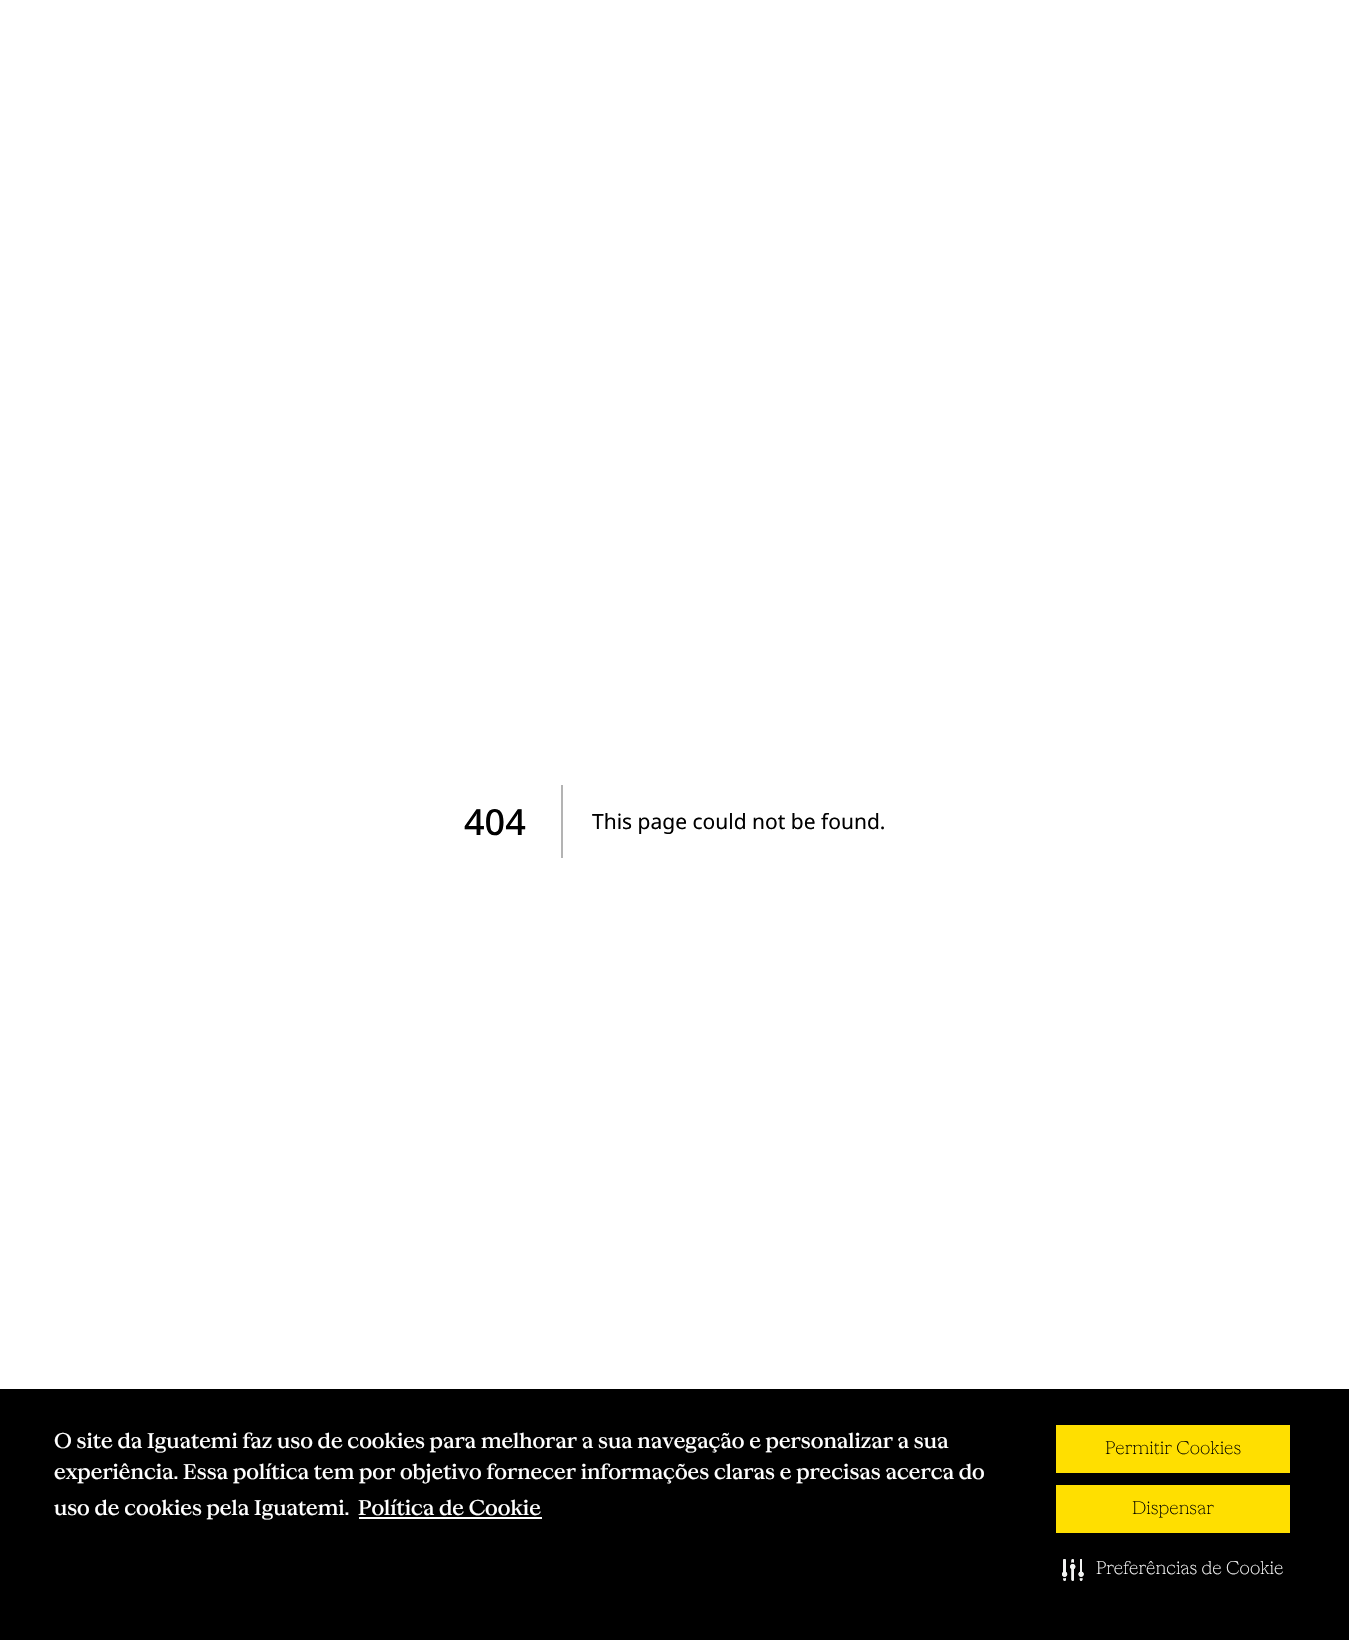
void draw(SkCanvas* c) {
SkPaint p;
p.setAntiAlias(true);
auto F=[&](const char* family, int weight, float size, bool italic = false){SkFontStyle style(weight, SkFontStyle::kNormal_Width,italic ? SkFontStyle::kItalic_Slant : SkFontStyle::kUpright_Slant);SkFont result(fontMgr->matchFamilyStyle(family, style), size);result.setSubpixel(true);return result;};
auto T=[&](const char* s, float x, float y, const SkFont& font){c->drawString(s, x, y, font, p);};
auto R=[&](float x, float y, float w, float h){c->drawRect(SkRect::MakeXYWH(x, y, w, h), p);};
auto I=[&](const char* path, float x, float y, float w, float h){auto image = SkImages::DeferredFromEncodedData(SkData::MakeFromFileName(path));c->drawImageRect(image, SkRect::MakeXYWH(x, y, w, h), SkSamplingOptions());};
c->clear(0xffffffff);
p.setColor(0xffb3b3b3);
R(561,785,2,73);
auto f1 = F("Noto Sans",500,36);
p.setColor(0xff000000);
T("404",464,835,f1);
auto f2 = F("Noto Sans",400,21);
T("This page could not be found.",592,829,f2);
R(0,1389,1349,251);
auto f3 = F("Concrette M",500,21);
p.setColor(0xffffffff);
T("O site da Iguatemi faz uso de cookies para melhorar a sua navegação e personalizar a sua",54,1448,f3);
T("experiência. Essa política tem por objetivo fornecer informações claras e precisas acerca do",54,1479,f3);
T("uso de cookies pela Iguatemi.",54,1515,f3);
T("Política de Cookie",358,1515,f3);
R(359,1517,183,2);
p.setColor(0xffffdf00);
R(1056,1425,234,48);
auto f4 = F("Concrette M",100,18);
p.setColor(0xff000000);
T("Permitir Cookies",1105,1454,f4);
p.setColor(0xffffdf00);
R(1056,1485,234,48);
p.setColor(0xff000000);
T("Dispensar",1132,1514,f4);
I("1.png",1062,1559,22,22);
p.setColor(0xffffffff);
T("Preferências de Cookie",1096,1574,f4);
}
